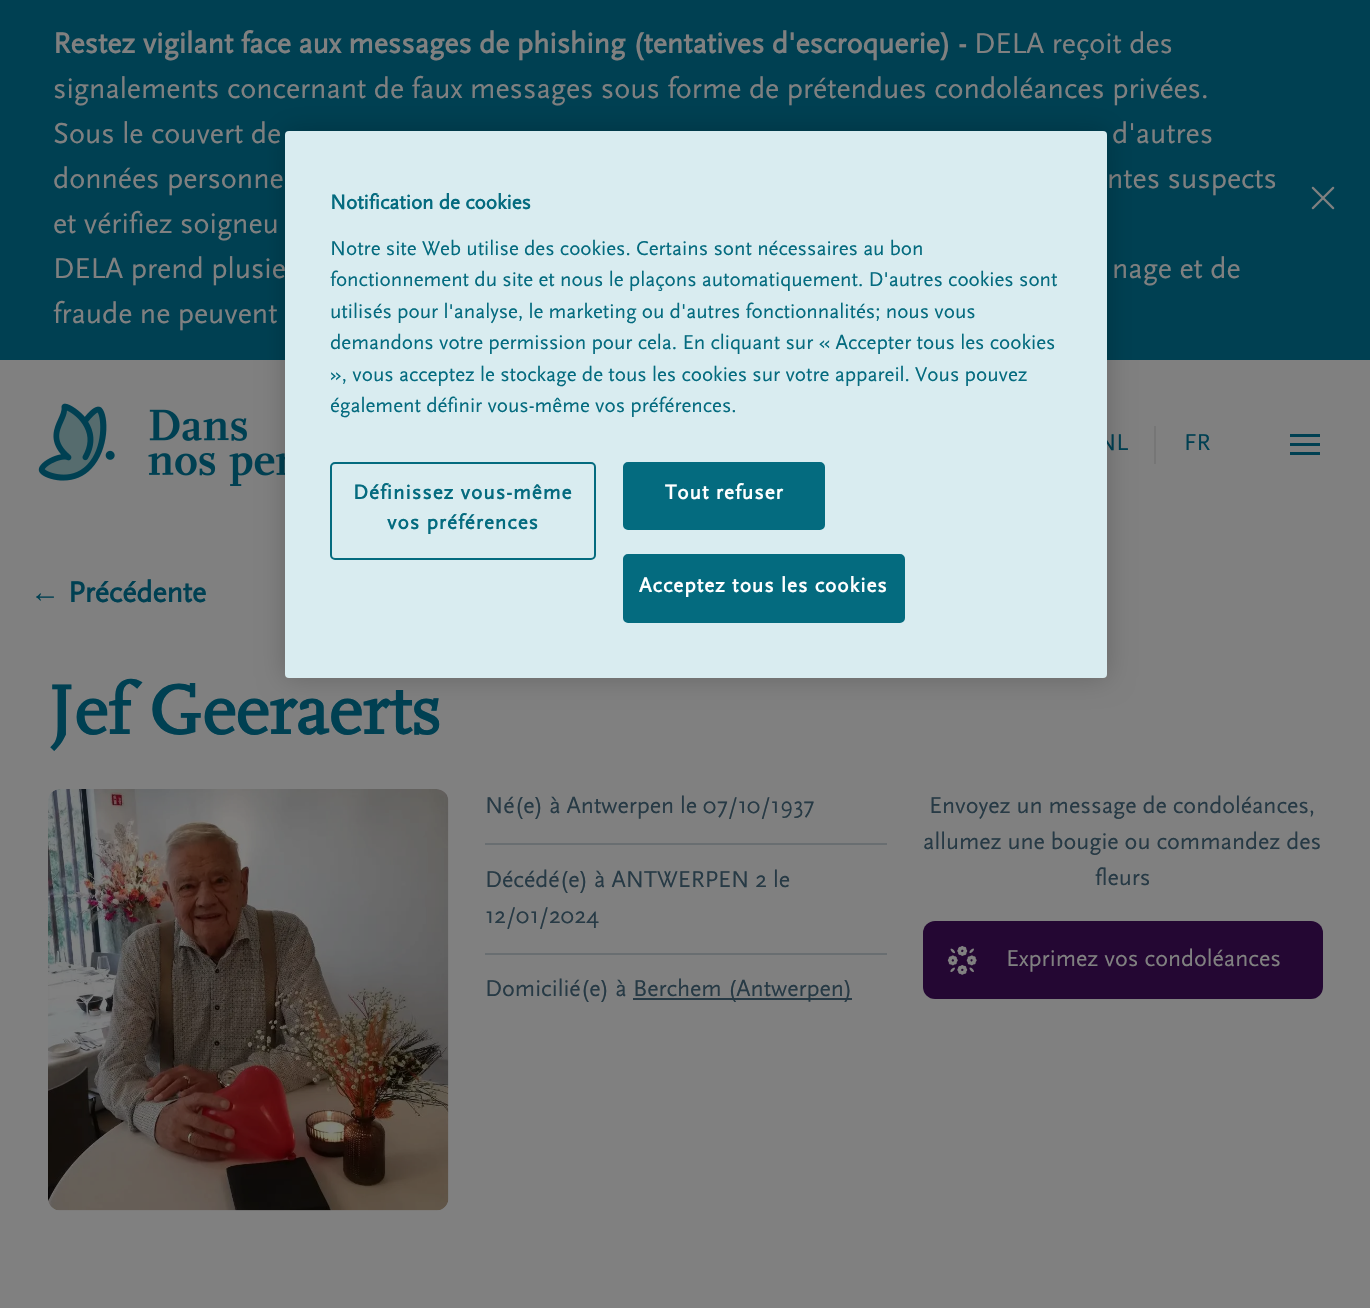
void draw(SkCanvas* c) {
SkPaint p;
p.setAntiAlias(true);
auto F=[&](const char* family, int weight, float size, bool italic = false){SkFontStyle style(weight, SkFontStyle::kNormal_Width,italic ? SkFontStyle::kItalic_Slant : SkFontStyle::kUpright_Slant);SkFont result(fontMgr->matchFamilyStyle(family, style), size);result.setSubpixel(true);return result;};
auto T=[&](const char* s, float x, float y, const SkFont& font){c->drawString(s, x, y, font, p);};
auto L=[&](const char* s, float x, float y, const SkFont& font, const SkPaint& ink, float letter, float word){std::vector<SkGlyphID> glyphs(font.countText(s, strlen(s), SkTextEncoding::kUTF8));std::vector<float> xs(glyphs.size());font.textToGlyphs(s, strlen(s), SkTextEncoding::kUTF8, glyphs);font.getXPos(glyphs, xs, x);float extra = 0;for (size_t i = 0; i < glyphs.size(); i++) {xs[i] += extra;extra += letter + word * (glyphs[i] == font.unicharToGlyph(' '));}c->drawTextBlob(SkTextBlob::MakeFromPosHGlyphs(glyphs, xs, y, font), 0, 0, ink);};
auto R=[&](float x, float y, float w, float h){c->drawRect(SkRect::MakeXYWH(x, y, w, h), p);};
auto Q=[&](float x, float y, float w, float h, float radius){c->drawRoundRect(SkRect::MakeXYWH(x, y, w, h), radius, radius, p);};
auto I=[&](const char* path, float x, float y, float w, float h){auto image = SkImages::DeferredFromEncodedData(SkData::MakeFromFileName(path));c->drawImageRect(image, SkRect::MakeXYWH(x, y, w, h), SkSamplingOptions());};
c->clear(0xff808080);
p.setColor(0xff004052);
R(0,0,1370,360);
auto f1 = F("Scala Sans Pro",700,30);
p.setColor(0xff808080);
T("Restez vigilant face aux messages de phishing (tentatives d'escroquerie) -",53,53,f1);
auto f2 = F("Scala Sans Pro",400,30);
T("DELA reçoit des",974,53,f2);
T("signalements concernant de faux messages sous forme de prétendues condoléances privées.",53,98,f2);
T("Sous le couvert de",53,143,f2);
T("d'autres",1112,143,f2);
T("données personne",53,188,f2);
T("ntes suspects",1107,188,f2);
I("1.png",1311,186,24,24);
T("et vérifiez soigneu",53,233,f2);
T("DELA prend plusie",53,278,f2);
T("nage et de",1112,278,f2);
T("fraude ne peuvent",53,323,f2);
I("2.png",38,403,247,83);
auto f3 = F("Scala Sans Pro",400,24);
p.setColor(0xff004052);
T("NL",1098,450,f3);
p.setColor(0xff767676);
R(1154,426,2,38);
p.setColor(0xff004052);
T("FR",1184,450,f3);
R(1290,434,30,3);
R(1290,443,30,3);
R(1290,452,30,3);
auto f4 = F("Liberation Sans",700,30);
T("←",30,602,f4);
T("Précédente",68,602,f1);
auto f5 = F("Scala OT",700,72);
T("Jef Geeraerts",48,734,f5);
I("3.png",48,789,401,422);
p.setColor(0xff696e71);
R(485,843,402,2);
p.setColor(0xff273a45);
T("Né(e) à Antwerpen le 07/10/1937",485,813,f3);
p.setColor(0xff696e71);
R(485,953,402,2);
p.setColor(0xff273a45);
T("Décédé(e) à ANTWERPEN 2 le",485,887,f3);
T("12/01/2024",485,923,f3);
T("Domicilié(e) à",485,996,f3);
R(633,998,219,2);
T("Berchem (Antwerpen)",633,996,f3);
T("Envoyez un message de condoléances,",929,813,f3);
T("allumez une bougie ou commandez des",923,849,f3);
T("fleurs",1095,885,f3);
p.setColor(0xff240733);
Q(923,921,400,78,12);
I("4.png",947,946,30,29);
p.setColor(0xff808080);
T("Exprimez vos condoléances",1006,966,f3);
p.setColor(0x33000000);
p.setMaskFilter(SkMaskFilter::MakeBlur(kNormal_SkBlurStyle, 13.5));
c->drawRoundRect(SkRect::MakeXYWH(285,131,822,547),4,4,p);
p.setMaskFilter(nullptr);
p.setColor(0xffd9ecf0);
Q(285,131,822,547,4);
auto f6 = F("Scala Sans Pro",700,21);
p.setColor(0xff046b7f);
T("Notification de cookies",330,209,f6);
auto f7 = F("Scala Sans Pro",400,21);
T("Notre site Web utilise des cookies. Certains sont nécessaires au bon",330,255,f7);
T("fonctionnement du site et nous le plaçons automatiquement. D'autres cookies sont",330,286,f7);
T("utilisés pour l'analyse, le marketing ou d'autres fonctionnalités; nous vous",330,318,f7);
T("demandons votre permission pour cela. En cliquant sur « Accepter tous les cookies",330,349,f7);
T("», vous acceptez le stockage de tous les cookies sur votre appareil. Vous pouvez",330,381,f7);
T("également définir vous-même vos préférences.",330,412,f7);
p.setStroke(true);
p.setStrokeWidth(2);
c->drawRoundRect(SkRect::MakeXYWH(331,463,264,96),4,4,p);
p.setStroke(false);
L("Définissez vous-même",353,499,f6,p,1.05,0);
L("vos préférences",387,529,f6,p,1.05,0);
c->drawRoundRect(SkRect::MakeXYWH(624,463,200,66),4,4,p);
p.setStroke(true);
c->drawRoundRect(SkRect::MakeXYWH(624,463,200,66),4,4,p);
p.setStroke(false);
p.setColor(0xffffffff);
L("Tout refuser",665,499,f6,p,1.05,0);
p.setColor(0xff046b7f);
c->drawRoundRect(SkRect::MakeXYWH(624,555,280,67),4,4,p);
p.setStroke(true);
c->drawRoundRect(SkRect::MakeXYWH(624,555,280,67),4,4,p);
p.setStroke(false);
p.setColor(0xffffffff);
L("Acceptez tous les cookies",639,592,f6,p,1.05,0);
}
